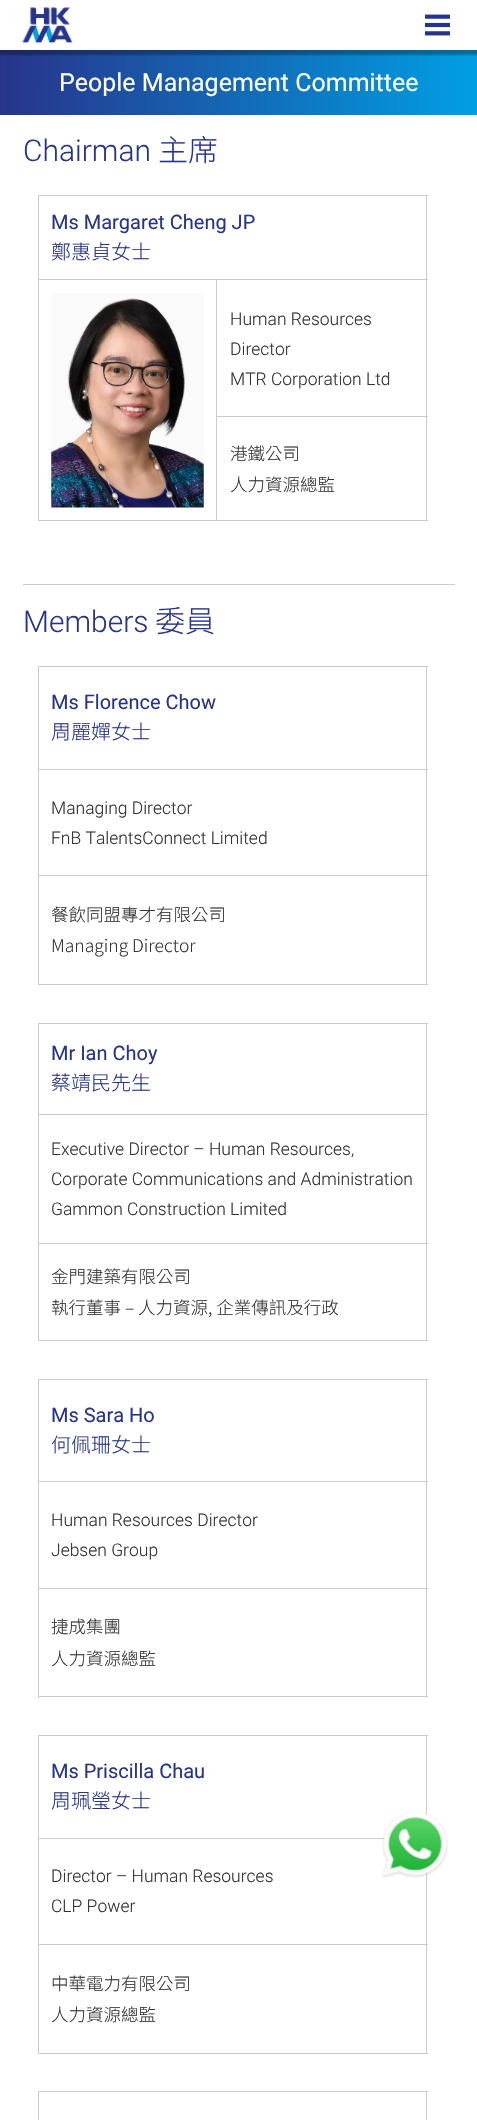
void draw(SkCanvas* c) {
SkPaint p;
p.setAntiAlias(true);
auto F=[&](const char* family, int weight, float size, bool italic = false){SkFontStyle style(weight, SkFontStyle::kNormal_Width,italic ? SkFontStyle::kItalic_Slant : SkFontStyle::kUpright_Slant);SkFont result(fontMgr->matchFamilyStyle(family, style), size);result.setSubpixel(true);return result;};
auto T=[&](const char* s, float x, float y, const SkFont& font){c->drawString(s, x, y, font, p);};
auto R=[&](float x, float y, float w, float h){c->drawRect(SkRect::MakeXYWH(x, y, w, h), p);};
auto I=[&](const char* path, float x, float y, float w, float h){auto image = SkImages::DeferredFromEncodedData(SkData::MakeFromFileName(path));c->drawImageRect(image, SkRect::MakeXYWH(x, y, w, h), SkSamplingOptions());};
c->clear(0xffffffff);
{
const SkColor colors[] = {0xff27348b,0xff009fe3};
const float stops[] = {0,1};
const SkPoint ends[] = {{0,83}, {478,82}};
p.setShader(SkGradientShader::MakeLinear(ends, colors, stops, 2, SkTileMode::kClamp));
p.setAlpha(255);
}
R(0,50,477,65);
c->save();
c->clipRect(SkRect::MakeXYWH(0,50,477,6));
p.setShader(nullptr);
p.setColor(0x4d000000);
p.setMaskFilter(SkMaskFilter::MakeBlur(kNormal_SkBlurStyle, 1));
c->drawRect(SkRect::MakeXYWH(0,0,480,55),p);
p.setMaskFilter(nullptr);
c->restore();
I("1.png",22,7,51,37);
I("2.png",425,14,25,22);
auto f1 = F("Roboto",400,25);
p.setColor(0xffffffff);
T("People Management Committee",59,91,f1);
auto f2 = F("Roboto",300,30);
p.setColor(0xff27348b);
T("Chairman",23,161,f2);
auto f3 = F("Noto Sans TC",300,30);
T("主席",158,161,f3);
p.setColor(0xffcccccc);
R(38,195,390,1);
R(216,279,212,1);
R(216,416,212,1);
R(426,416,1,105);
R(426,279,1,139);
R(426,195,1,85);
R(216,520,212,1);
R(216,416,1,105);
R(216,279,1,139);
R(38,279,180,1);
R(38,520,180,1);
R(38,279,1,242);
R(38,195,1,85);
auto f4 = F("Roboto",400,20);
p.setColor(0xff27348b);
T("Ms Margaret Cheng JP",51,229,f4);
auto f5 = F("Noto Sans TC",300,20);
T("鄭惠貞女士",51,259,f5);
I("3.png",51,293,153,215);
auto f6 = F("Roboto",300,17.5);
p.setColor(0xff333333);
T("Human Resources",230,325,f6);
T("Director",230,355,f6);
T("MTR Corporation Ltd",230,385,f6);
auto f7 = F("Noto Sans TC",300,17.5);
T("港鐵公司",230,460,f7);
T("人力資源總監",230,491,f7);
p.setColor(0xffcccccc);
R(23,584,432,1);
p.setColor(0xff27348b);
T("Members",23,632,f2);
T("委員",155,632,f3);
p.setColor(0xffcccccc);
R(38,666,390,1);
R(38,769,390,1);
R(38,875,390,1);
R(426,875,1,110);
R(426,769,1,107);
R(426,666,1,104);
R(38,984,390,1);
R(38,875,1,110);
R(38,769,1,107);
R(38,666,1,104);
p.setColor(0xff27348b);
T("Ms Florence Chow",51,709,f4);
T("周麗嬋女士",51,739,f5);
p.setColor(0xff333333);
T("Managing Director",51,814,f6);
T("FnB TalentsConnect Limited",51,844,f6);
T("餐飲同盟專才有限公司",51,921,f7);
T("Managing Director",51,952,f7);
p.setColor(0xffcccccc);
R(38,1023,390,1);
R(38,1114,390,1);
R(38,1243,390,1);
R(426,1243,1,98);
R(426,1114,1,130);
R(426,1023,1,92);
R(38,1340,390,1);
R(38,1243,1,98);
R(38,1114,1,130);
R(38,1023,1,92);
p.setColor(0xff27348b);
T("Mr Ian Choy",51,1060,f4);
T("蔡靖民先生",51,1090,f5);
p.setColor(0xff333333);
T("Executive Director – Human Resources,",51,1155,f6);
T("Corporate Communications and Administration",51,1185,f6);
T("Gammon Construction Limited",51,1215,f6);
T("金門建築有限公司",51,1283,f7);
T("執行董事 – 人力資源, 企業傳訊及行政",51,1314,f7);
p.setColor(0xffcccccc);
R(38,1379,390,1);
R(38,1481,390,1);
R(38,1588,390,1);
R(426,1588,1,110);
R(426,1481,1,108);
R(426,1379,1,104);
R(38,1696,390,1);
R(38,1588,1,110);
R(38,1481,1,108);
R(38,1379,1,104);
p.setColor(0xff27348b);
T("Ms Sara Ho",51,1422,f4);
T("何佩珊女士",51,1452,f5);
p.setColor(0xff333333);
T("Human Resources Director",51,1526,f6);
T("Jebsen Group",51,1556,f6);
T("捷成集團",51,1633,f7);
T("人力資源總監",51,1665,f7);
p.setColor(0xffcccccc);
R(38,1735,390,1);
R(426,1735,1,82);
R(38,1838,348,1);
R(38,1944,390,1);
R(426,1872,1,182);
R(38,2053,390,1);
R(38,1944,1,110);
R(38,1838,1,107);
R(38,1735,1,104);
p.setColor(0xff27348b);
T("Ms Priscilla Chau",51,1778,f4);
T("周珮瑩女士",51,1808,f5);
p.setColor(0xff333333);
T("Director – Human Resources",51,1882,f6);
T("CLP Power",51,1912,f6);
T("中華電力有限公司",51,1990,f7);
T("人力資源總監",51,2021,f7);
p.setColor(0xffcccccc);
R(38,2091,390,1);
R(426,2091,1,29);
R(38,2091,1,29);
I("4.png",382,1811,66,67);
}
